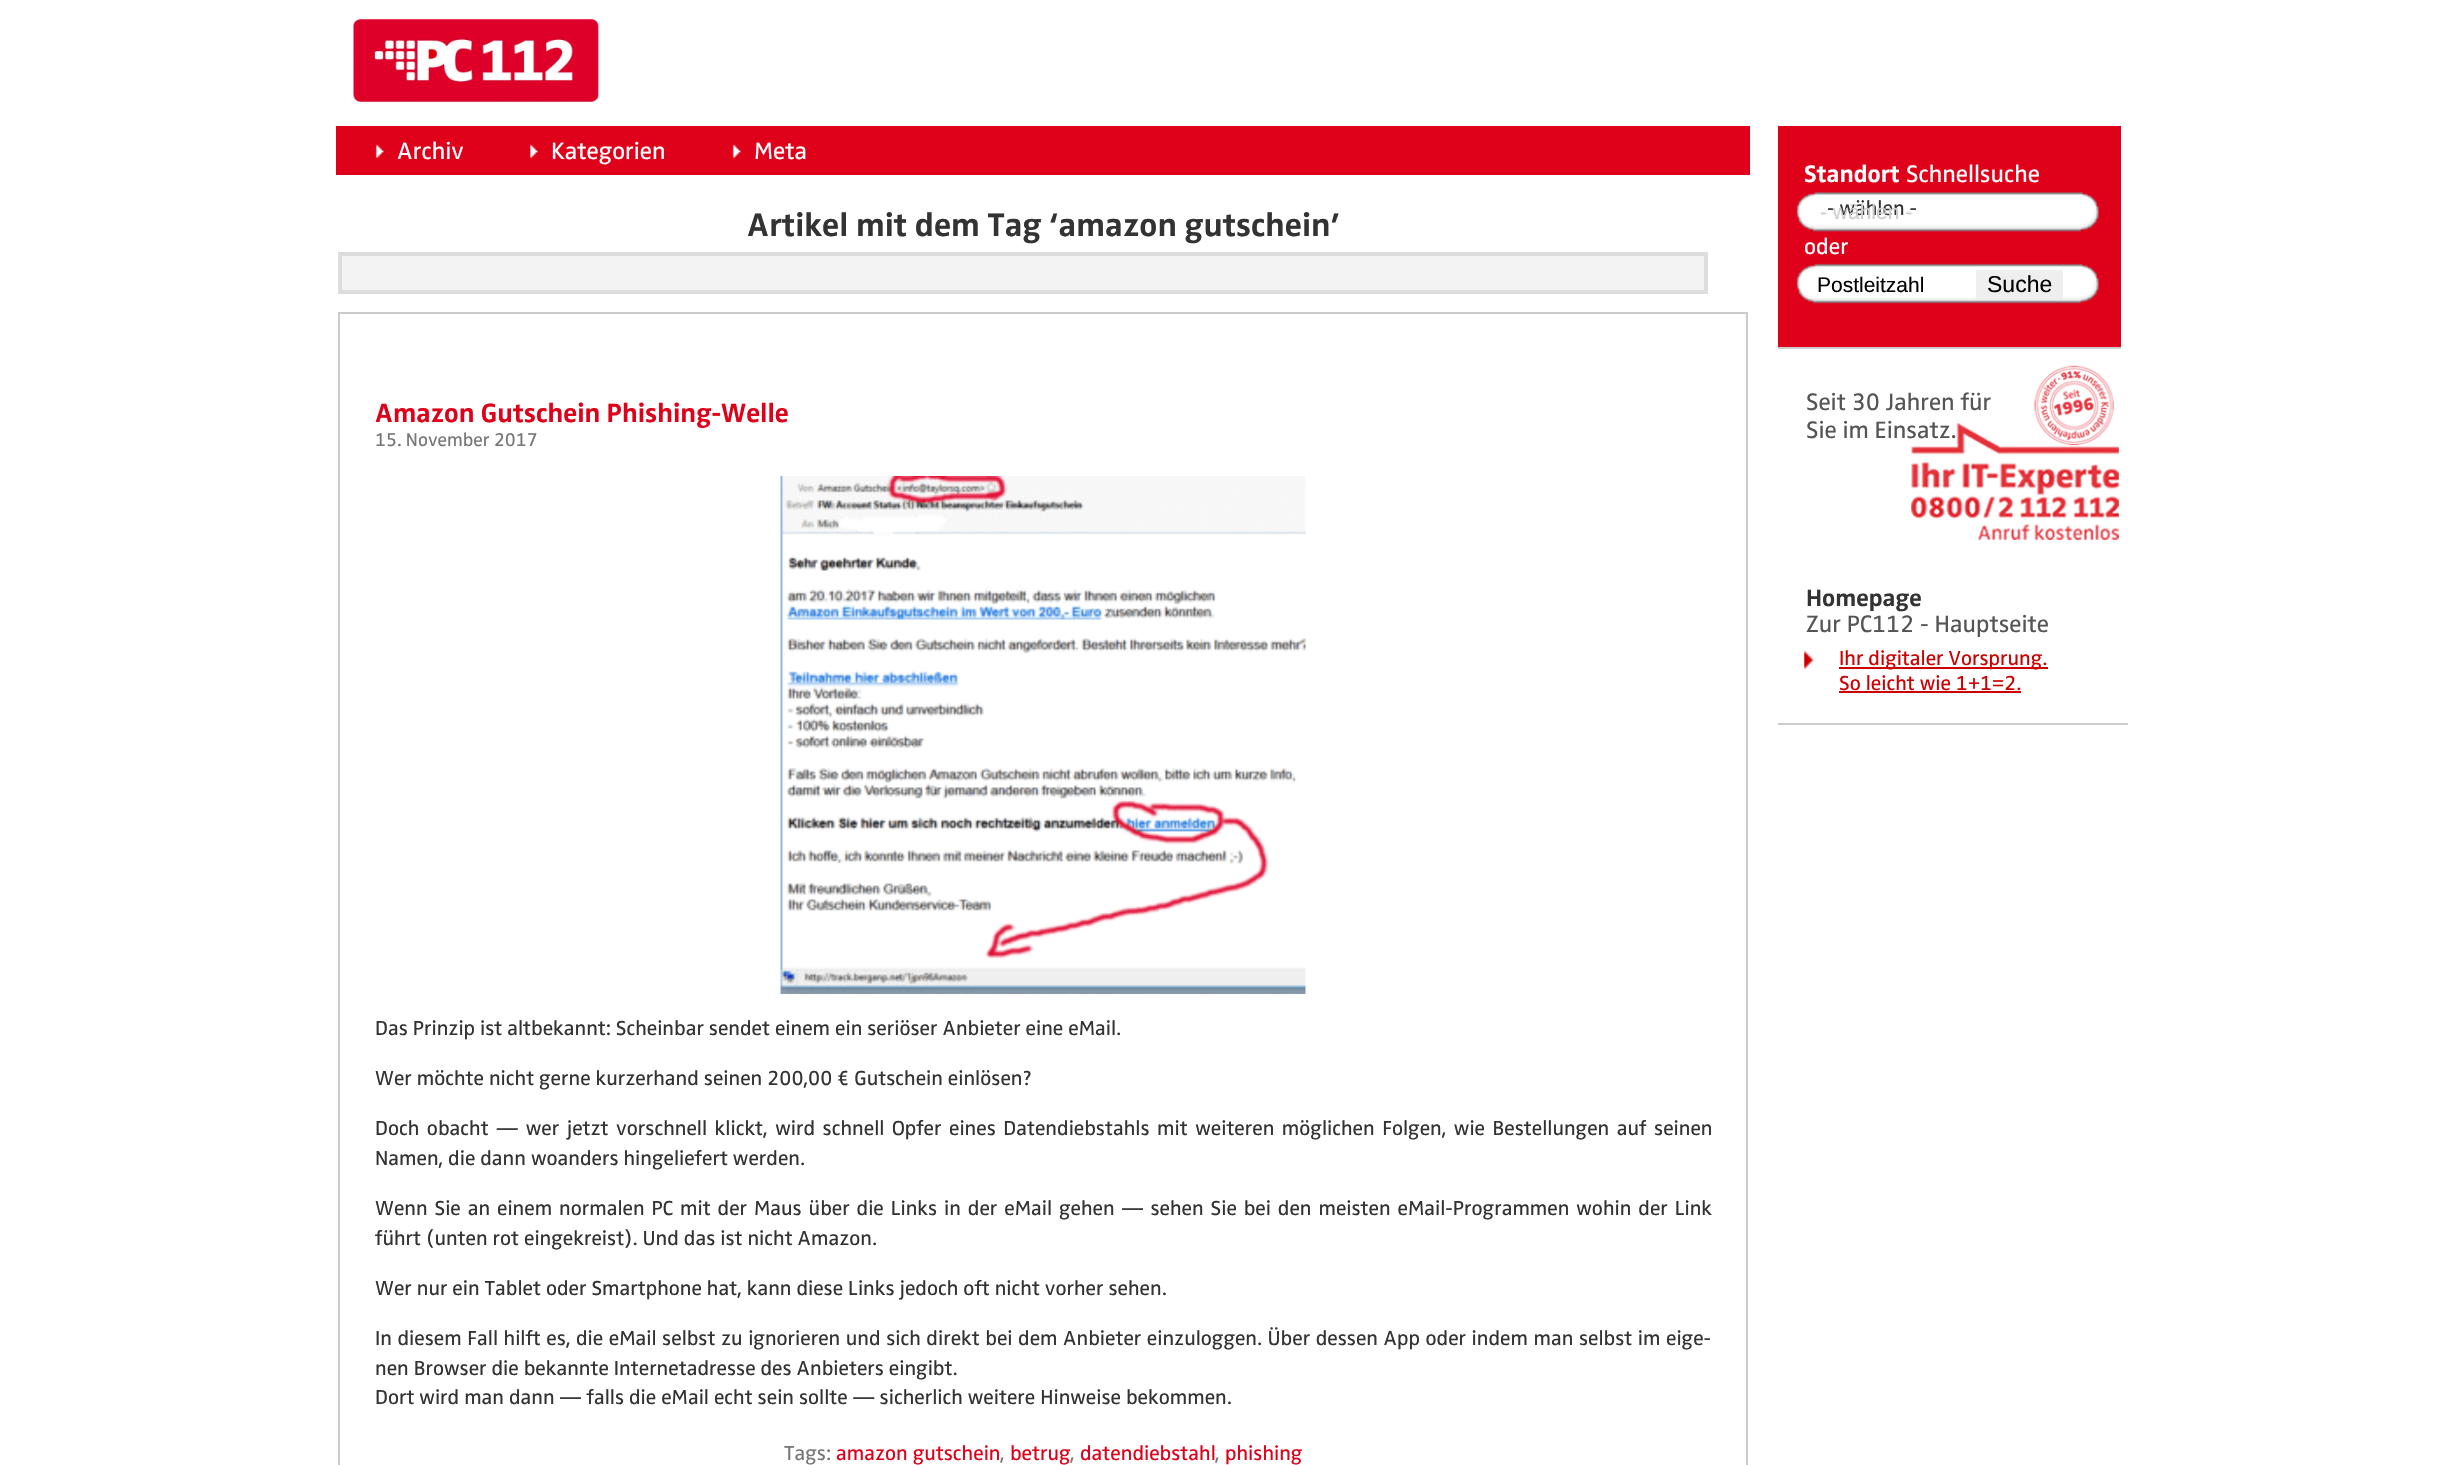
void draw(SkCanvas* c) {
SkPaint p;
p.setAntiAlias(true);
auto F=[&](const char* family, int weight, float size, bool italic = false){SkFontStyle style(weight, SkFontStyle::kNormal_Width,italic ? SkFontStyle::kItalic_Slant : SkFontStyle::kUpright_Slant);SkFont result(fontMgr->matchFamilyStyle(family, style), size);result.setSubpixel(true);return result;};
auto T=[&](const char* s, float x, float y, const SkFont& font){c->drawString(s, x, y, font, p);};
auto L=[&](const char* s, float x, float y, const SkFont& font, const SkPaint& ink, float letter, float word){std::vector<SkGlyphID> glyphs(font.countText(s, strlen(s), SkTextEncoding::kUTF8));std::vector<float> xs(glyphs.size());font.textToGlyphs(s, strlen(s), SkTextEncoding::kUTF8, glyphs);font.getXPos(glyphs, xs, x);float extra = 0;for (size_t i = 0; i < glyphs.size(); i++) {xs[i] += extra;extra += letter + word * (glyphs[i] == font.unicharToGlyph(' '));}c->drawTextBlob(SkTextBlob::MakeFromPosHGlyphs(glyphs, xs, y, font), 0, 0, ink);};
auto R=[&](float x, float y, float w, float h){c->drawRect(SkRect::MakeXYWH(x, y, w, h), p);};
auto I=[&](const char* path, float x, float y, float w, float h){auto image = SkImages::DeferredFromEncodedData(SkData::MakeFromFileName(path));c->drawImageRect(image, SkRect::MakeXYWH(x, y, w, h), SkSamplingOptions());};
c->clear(0xffffffff);
I("1.png",353,19,246,84);
p.setColor(0xffdf0019);
R(336,126,1414,49);
I("2.png",375,144,9,14);
auto f1 = F("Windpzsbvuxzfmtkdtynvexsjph",400,24.5);
p.setColor(0xffffffff);
T("Archiv",397,159,f1);
I("3.png",530,144,8,14);
T("Kategorien",551,159,f1);
I("4.png",732,144,9,14);
T("Meta",754,159,f1);
auto f2 = F("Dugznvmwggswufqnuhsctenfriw",700,33.6);
p.setColor(0xff333333);
T("Artikel mit dem Tag ‘amazon gutschein’",747,236,f2);
p.setColor(0xfff3f3f3);
c->drawRect(SkRect::MakeXYWH(340,254,1366,38),p);
p.setStroke(true);
p.setStrokeWidth(4);
p.setColor(0xffdddddd);
c->drawRect(SkRect::MakeXYWH(340,254,1366,38),p);
p.setStrokeWidth(2);
p.setColor(0xffcccbca);
c->drawRect(SkRect::MakeXYWH(339,313,1408,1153),p);
auto f3 = F("Dugznvmwggswufqnuhsctenfriw",700,27.25);
p.setStroke(false);
p.setColor(0xffdf0019);
T("Amazon Gutschein Phishing-Welle",375,422,f3);
auto f4 = F("Windpzsbvuxzfmtkdtynvexsjph",400,19);
p.setColor(0xff777777);
T("15. November 2017",375,446,f4);
I("5.png",780,476,526,518);
auto f5 = F("Windpzsbvuxzfmtkdtynvexsjph",400,21);
p.setColor(0xff333333);
T("Das Prinzip ist altbekannt: Scheinbar sendet einem ein seriöser Anbieter eine eMail.",375,1035,f5);
T("Wer möchte nicht gerne kurzerhand seinen 200,00 € Gutschein einlösen?",375,1085,f5);
L("Doch obacht — wer jetzt vorschnell klickt, wird schnell Opfer eines Datendiebstahls mit weiteren möglichen Folgen, wie Bestellungen auf seinen",375,1135,f5,p,0,2.6);
T("Namen, die dann woanders hingeliefert werden.",375,1165,f5);
L("Wenn Sie an einem normalen PC mit der Maus über die Links in der eMail gehen — sehen Sie bei den meisten eMail-Programmen wohin der Link",375,1215,f5,p,0,1.95);
T("führt (unten rot eingekreist). Und das ist nicht Amazon.",375,1245,f5);
T("Wer nur ein Tablet oder Smartphone hat, kann diese Links jedoch oft nicht vorher sehen.",375,1295,f5);
L("In diesem Fall hilft es, die eMail selbst zu ignorieren und sich direkt bei dem Anbieter einzuloggen. Über dessen App oder indem man selbst im eige-",375,1345,f5,p,0,.6);
T("nen Browser die bekannte Internetadresse des Anbieters eingibt.",375,1375,f5);
T("Dort wird man dann — falls die eMail echt sein sollte — sicherlich weitere Hinweise bekommen.",375,1404,f5);
p.setColor(0xff777777);
T("Tags:",784,1460,f5);
p.setColor(0xffdf0019);
T("amazon gutschein",836,1460,f5);
p.setColor(0xff777777);
T(",",1000,1460,f5);
p.setColor(0xffdf0019);
T("betrug",1010,1460,f5);
p.setColor(0xff777777);
T(",",1070,1460,f5);
p.setColor(0xffdf0019);
T("datendiebstahl",1080,1460,f5);
p.setColor(0xff777777);
T(",",1215,1460,f5);
p.setColor(0xffdf0019);
T("phishing",1225,1460,f5);
R(1778,126,343,221);
p.setColor(0xffcccccc);
R(1778,347,343,2);
auto f6 = F("Dugznvmwggswufqnuhsctenfriw",700,24.5);
p.setColor(0xffffffff);
T("Standort",1804,182,f6);
T("Schnellsuche",1906,182,f1);
I("6.png",1796,192,303,40);
p.setColor(0xff333333);
T("- wählen -",1827,215,f5);
auto f7 = F("Liberation Sans",400,21);
p.setColor(0xffcdcdcd);
T("- wählen -",1820,219,f7);
auto f8 = F("Windpzsbvuxzfmtkdtynvexsjph",400,23);
p.setColor(0xffffffff);
T("oder",1804,254,f8);
I("7.png",1796,263,303,41);
R(1813,296,158,2);
p.setColor(0xff000000);
T("Postleitzahl",1817,292,f7);
p.setColor(0xffefefef);
R(1976,270,87,29);
auto f9 = F("Liberation Sans",400,23);
p.setColor(0xff000000);
T("Suche",1987,292,f9);
p.setColor(0xff555555);
T("Seit 30 Jahren für",1806,410,f1);
T("Sie im Einsatz.",1806,438,f1);
I("8.png",1911,365,208,175);
p.setColor(0xffcccccc);
R(1778,723,350,2);
p.setColor(0xff333333);
T("Homepage",1806,606,f6);
p.setColor(0xff555555);
T("Zur PC112 - Hauptseite",1806,632,f1);
I("9.png",1804,650,10,19);
p.setColor(0xffcc0000);
R(1839,667,209,2);
T("Ihr digitaler Vorsprung.",1839,665,f5);
T("So leicht wie 1+1=2.",1839,690,f5);
R(1839,691,182,2);
}
